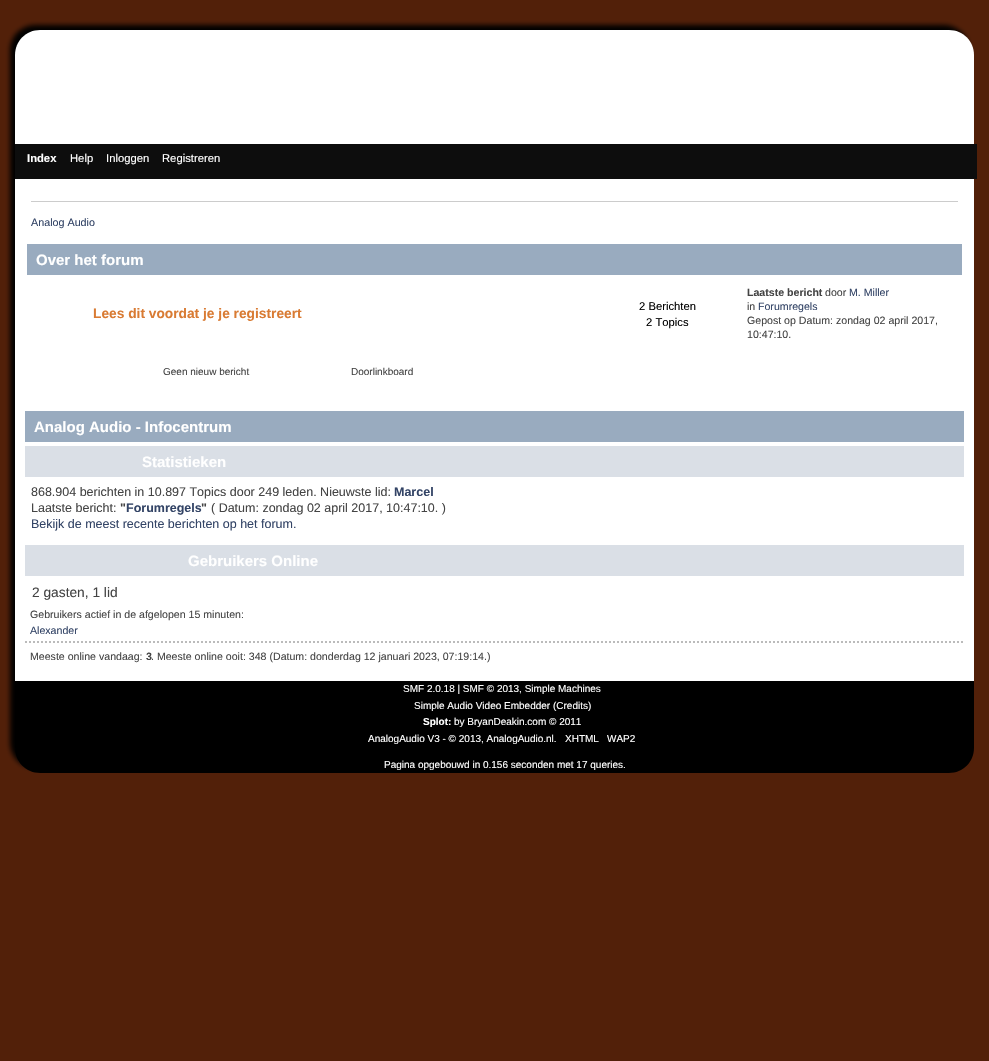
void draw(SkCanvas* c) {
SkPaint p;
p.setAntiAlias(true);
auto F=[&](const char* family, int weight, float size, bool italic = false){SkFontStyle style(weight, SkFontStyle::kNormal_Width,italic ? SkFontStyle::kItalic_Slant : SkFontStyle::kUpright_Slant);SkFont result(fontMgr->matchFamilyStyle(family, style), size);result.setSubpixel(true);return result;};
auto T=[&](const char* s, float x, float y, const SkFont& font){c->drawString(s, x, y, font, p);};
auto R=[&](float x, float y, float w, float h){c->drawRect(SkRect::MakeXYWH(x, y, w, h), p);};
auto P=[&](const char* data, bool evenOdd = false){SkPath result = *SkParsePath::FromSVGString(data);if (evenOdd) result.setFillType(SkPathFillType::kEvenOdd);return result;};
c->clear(0xff522009);
p.setColor(0xff000000);
p.setMaskFilter(SkMaskFilter::MakeBlur(kNormal_SkBlurStyle, 2.5));
c->drawRoundRect(SkRect::MakeXYWH(10,25,959,743),25,25,p);
p.setMaskFilter(nullptr);
p.setColor(0xffffffff);
c->drawPath(P("M40 30h909c14 0 25 11 25 25v89h-959v-89c0-14 11-25 25-25z"),p);
p.setColor(0xff0d0d0d);
R(15,144,962,35);
auto f1 = F("Liberation Sans",700,11.25);
p.setColor(0xffffffff);
T("Index",27,162,f1);
auto f2 = F("Liberation Sans",400,11.25);
T("Help",70,162,f2);
T("Inloggen",106,162,f2);
T("Registreren",162,162,f2);
R(15,179,959,502);
p.setColor(0xffcccccc);
R(31,201,927,1);
auto f3 = F("Liberation Sans",400,10.75);
p.setColor(0xff334466);
T("Analog Audio",31,226,f3);
p.setColor(0xff99abbf);
R(27,244,935,31);
auto f4 = F("Liberation Sans",700,15);
p.setColor(0xffffffff);
T("Over het forum",36,265,f4);
auto f5 = F("Liberation Sans",700,13.75);
p.setColor(0xffd97b33);
T("Lees dit voordat je je registreert",93,318,f5);
p.setColor(0xff000000);
T("2 Berichten",639,310,f2);
T("2 Topics",646,326,f2);
auto f6 = F("Liberation Sans",700,10.6);
p.setColor(0xff444444);
T("Laatste bericht",747,296,f6);
auto f7 = F("Liberation Sans",400,10.6);
T("door",825,296,f7);
p.setColor(0xff334466);
T("M. Miller",849,296,f7);
p.setColor(0xff444444);
T("in",747,310,f7);
p.setColor(0xff334466);
T("Forumregels",758,310,f7);
p.setColor(0xff444444);
T("Gepost op Datum: zondag 02 april 2017,",747,324,f7);
T("10:47:10.",747,338,f7);
auto f8 = F("Liberation Sans",400,10);
T("Geen nieuw bericht",163,375,f8);
T("Doorlinkboard",351,375,f8);
p.setColor(0xff99abbf);
R(25,411,939,31);
p.setColor(0xffffffff);
T("Analog Audio - Infocentrum",34,432,f4);
p.setColor(0xffdadfe6);
R(25,446,939,31);
p.setColor(0xffffffff);
T("Statistieken",142,467,f4);
auto f9 = F("Liberation Sans",400,12.5);
p.setColor(0xff444444);
T("868.904 berichten in 10.897 Topics door 249 leden. Nieuwste lid:",31,496,f9);
auto f10 = F("Liberation Sans",700,12.5);
p.setColor(0xff334466);
T("Marcel",394,496,f10);
p.setColor(0xff444444);
T("Laatste bericht:",31,512,f9);
T("\"",120,512,f10);
p.setColor(0xff334466);
T("Forumregels",126,512,f10);
p.setColor(0xff444444);
T("\"",201,512,f10);
T("( Datum: zondag 02 april 2017, 10:47:10. )",211,512,f9);
p.setColor(0xff334466);
T("Bekijk de meest recente berichten op het forum.",31,528,f9);
p.setColor(0xffdadfe6);
R(25,545,939,31);
p.setColor(0xffffffff);
T("Gebruikers Online",188,566,f4);
auto f11 = F("Liberation Sans",400,13.75);
p.setColor(0xff444444);
T("2 gasten, 1 lid",32,597,f11);
T("Gebruikers actief in de afgelopen 15 minuten:",30,618,f7);
p.setColor(0xff334466);
T("Alexander",30,634,f7);
p.setStroke(true);
p.setStrokeWidth(2);
p.setColor(0xffbbbbbb);
p.setPathEffect(SkDashPathEffect::Make({{2,2}}, 0));
c->drawPath(P("M25 642h939"),p);
p.setPathEffect(nullptr);
p.setStroke(false);
p.setColor(0xff444444);
T("Meeste online vandaag:",30,660,f7);
T("3",146,660,f6);
T(". Meeste online ooit: 348 (Datum: donderdag 12 januari 2023, 07:19:14.)",151,660,f7);
p.setColor(0xff000000);
c->drawPath(P("M15 681h959v67c0 14-11 25-25 25h-909c-14 0-25-11-25-25z"),p);
p.setColor(0xffffffff);
T("SMF 2.0.18 | SMF © 2013, Simple Machines",403,692,f8);
T("Simple Audio Video Embedder (Credits)",414,709,f8);
auto f12 = F("Liberation Sans",700,10);
T("Splot:",423,725,f12);
T("by BryanDeakin.com © 2011",454,725,f8);
T("AnalogAudio V3 - © 2013, AnalogAudio.nl.",368,742,f8);
T("XHTML",565,742,f8);
T("WAP2",607,742,f8);
T("Pagina opgebouwd in 0.156 seconden met 17 queries.",384,768,f8);
}
